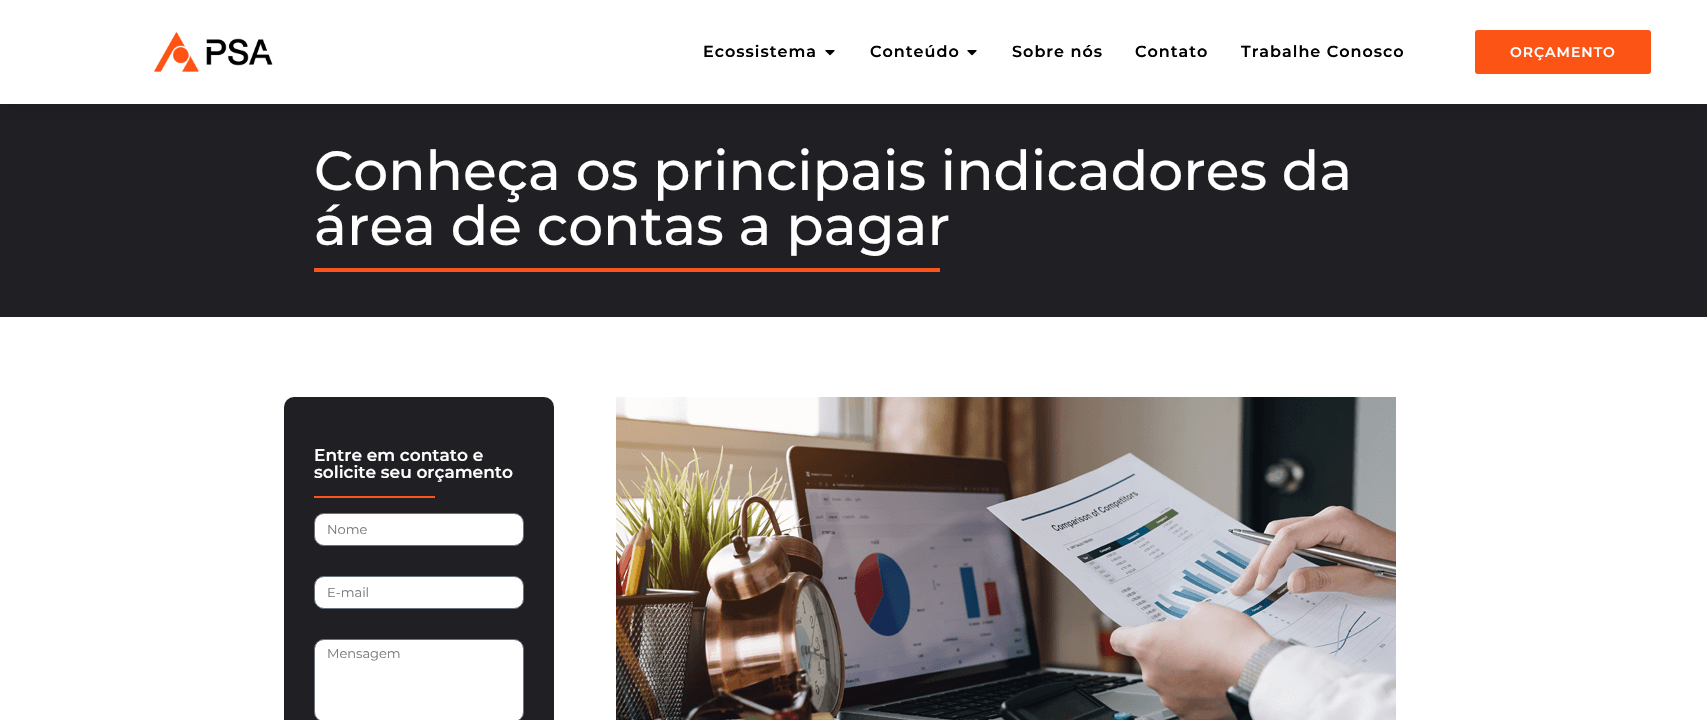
void draw(SkCanvas* c) {
SkPaint p;
p.setAntiAlias(true);
auto F=[&](const char* family, int weight, float size, bool italic = false){SkFontStyle style(weight, SkFontStyle::kNormal_Width,italic ? SkFontStyle::kItalic_Slant : SkFontStyle::kUpright_Slant);SkFont result(fontMgr->matchFamilyStyle(family, style), size);result.setSubpixel(true);return result;};
auto T=[&](const char* s, float x, float y, const SkFont& font){c->drawString(s, x, y, font, p);};
auto L=[&](const char* s, float x, float y, const SkFont& font, const SkPaint& ink, float letter, float word){std::vector<SkGlyphID> glyphs(font.countText(s, strlen(s), SkTextEncoding::kUTF8));std::vector<float> xs(glyphs.size());font.textToGlyphs(s, strlen(s), SkTextEncoding::kUTF8, glyphs);font.getXPos(glyphs, xs, x);float extra = 0;for (size_t i = 0; i < glyphs.size(); i++) {xs[i] += extra;extra += letter + word * (glyphs[i] == font.unicharToGlyph(' '));}c->drawTextBlob(SkTextBlob::MakeFromPosHGlyphs(glyphs, xs, y, font), 0, 0, ink);};
auto R=[&](float x, float y, float w, float h){c->drawRect(SkRect::MakeXYWH(x, y, w, h), p);};
auto Q=[&](float x, float y, float w, float h, float radius){c->drawRoundRect(SkRect::MakeXYWH(x, y, w, h), radius, radius, p);};
auto I=[&](const char* path, float x, float y, float w, float h){auto image = SkImages::DeferredFromEncodedData(SkData::MakeFromFileName(path));c->drawImageRect(image, SkRect::MakeXYWH(x, y, w, h), SkSamplingOptions());};
c->clear(0xffffffff);
p.setColor(0xff202024);
R(0,104,1707,213);
p.setColor(0x26000000);
p.setMaskFilter(SkMaskFilter::MakeBlur(kNormal_SkBlurStyle, 12));
c->drawRect(SkRect::MakeXYWH(0,0,1707,104),p);
p.setMaskFilter(nullptr);
p.setColor(0xffffffff);
R(0,0,1707,104);
I("1.png",154,32,119,40);
auto f1 = F("Montserrat",600,16);
p.setColor(0xff000000);
L("Ecossistema",703,57,f1,p,1,0);
I("2.png",825,50,10,6);
L("Conteúdo",870,57,f1,p,1,0);
I("2.png",967,50,10,6);
L("Sobre nós",1012,57,f1,p,1,0);
L("Contato",1135,57,f1,p,1,0);
L("Trabalhe Conosco",1241,57,f1,p,1,0);
p.setColor(0xfffc5414);
Q(1475,30,176,44,3);
auto f2 = F("Montserrat",600,14);
p.setColor(0xffffffff);
L("ORÇAMENTO",1510,57,f2,p,1,0);
auto f3 = F("Montserrat",500,55);
T("Conheça os principais indicadores da",314,190,f3);
T("área de contas a pagar",314,245,f3);
p.setColor(0xfffc541f);
R(314,268,626,4);
p.setColor(0xff202024);
Q(284,397,270,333,10);
auto f4 = F("Montserrat",600,17);
p.setColor(0xffffffff);
T("Entre em contato e",314,461,f4);
T("solicite seu orçamento",314,478,f4);
p.setColor(0xfffc541f);
R(314,496,121,2);
p.setColor(0xffffffff);
c->drawRoundRect(SkRect::MakeXYWH(314.5,513.5,209,32),9.5,9.5,p);
p.setStroke(true);
p.setStrokeWidth(1);
p.setColor(0xff69727d);
c->drawRoundRect(SkRect::MakeXYWH(314.5,513.5,209,32),9.5,9.5,p);
auto f5 = F("Montserrat",400,13);
p.setStroke(false);
p.setColor(0xff797a7c);
T("Nome",327,534,f5);
p.setColor(0xffffffff);
c->drawRoundRect(SkRect::MakeXYWH(314.5,576.5,209,32),9.5,9.5,p);
p.setStroke(true);
p.setColor(0xff69727d);
c->drawRoundRect(SkRect::MakeXYWH(314.5,576.5,209,32),9.5,9.5,p);
p.setStroke(false);
p.setColor(0xff797a7c);
T("E-mail",327,597,f5);
p.setColor(0xffffffff);
c->drawRoundRect(SkRect::MakeXYWH(314.5,639.5,209,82),9.5,9.5,p);
p.setStroke(true);
p.setColor(0xff69727d);
c->drawRoundRect(SkRect::MakeXYWH(314.5,639.5,209,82),9.5,9.5,p);
p.setStroke(false);
p.setColor(0xff797a7c);
T("Mensagem",327,658,f5);
I("3.png",616,397,780,323);
}
